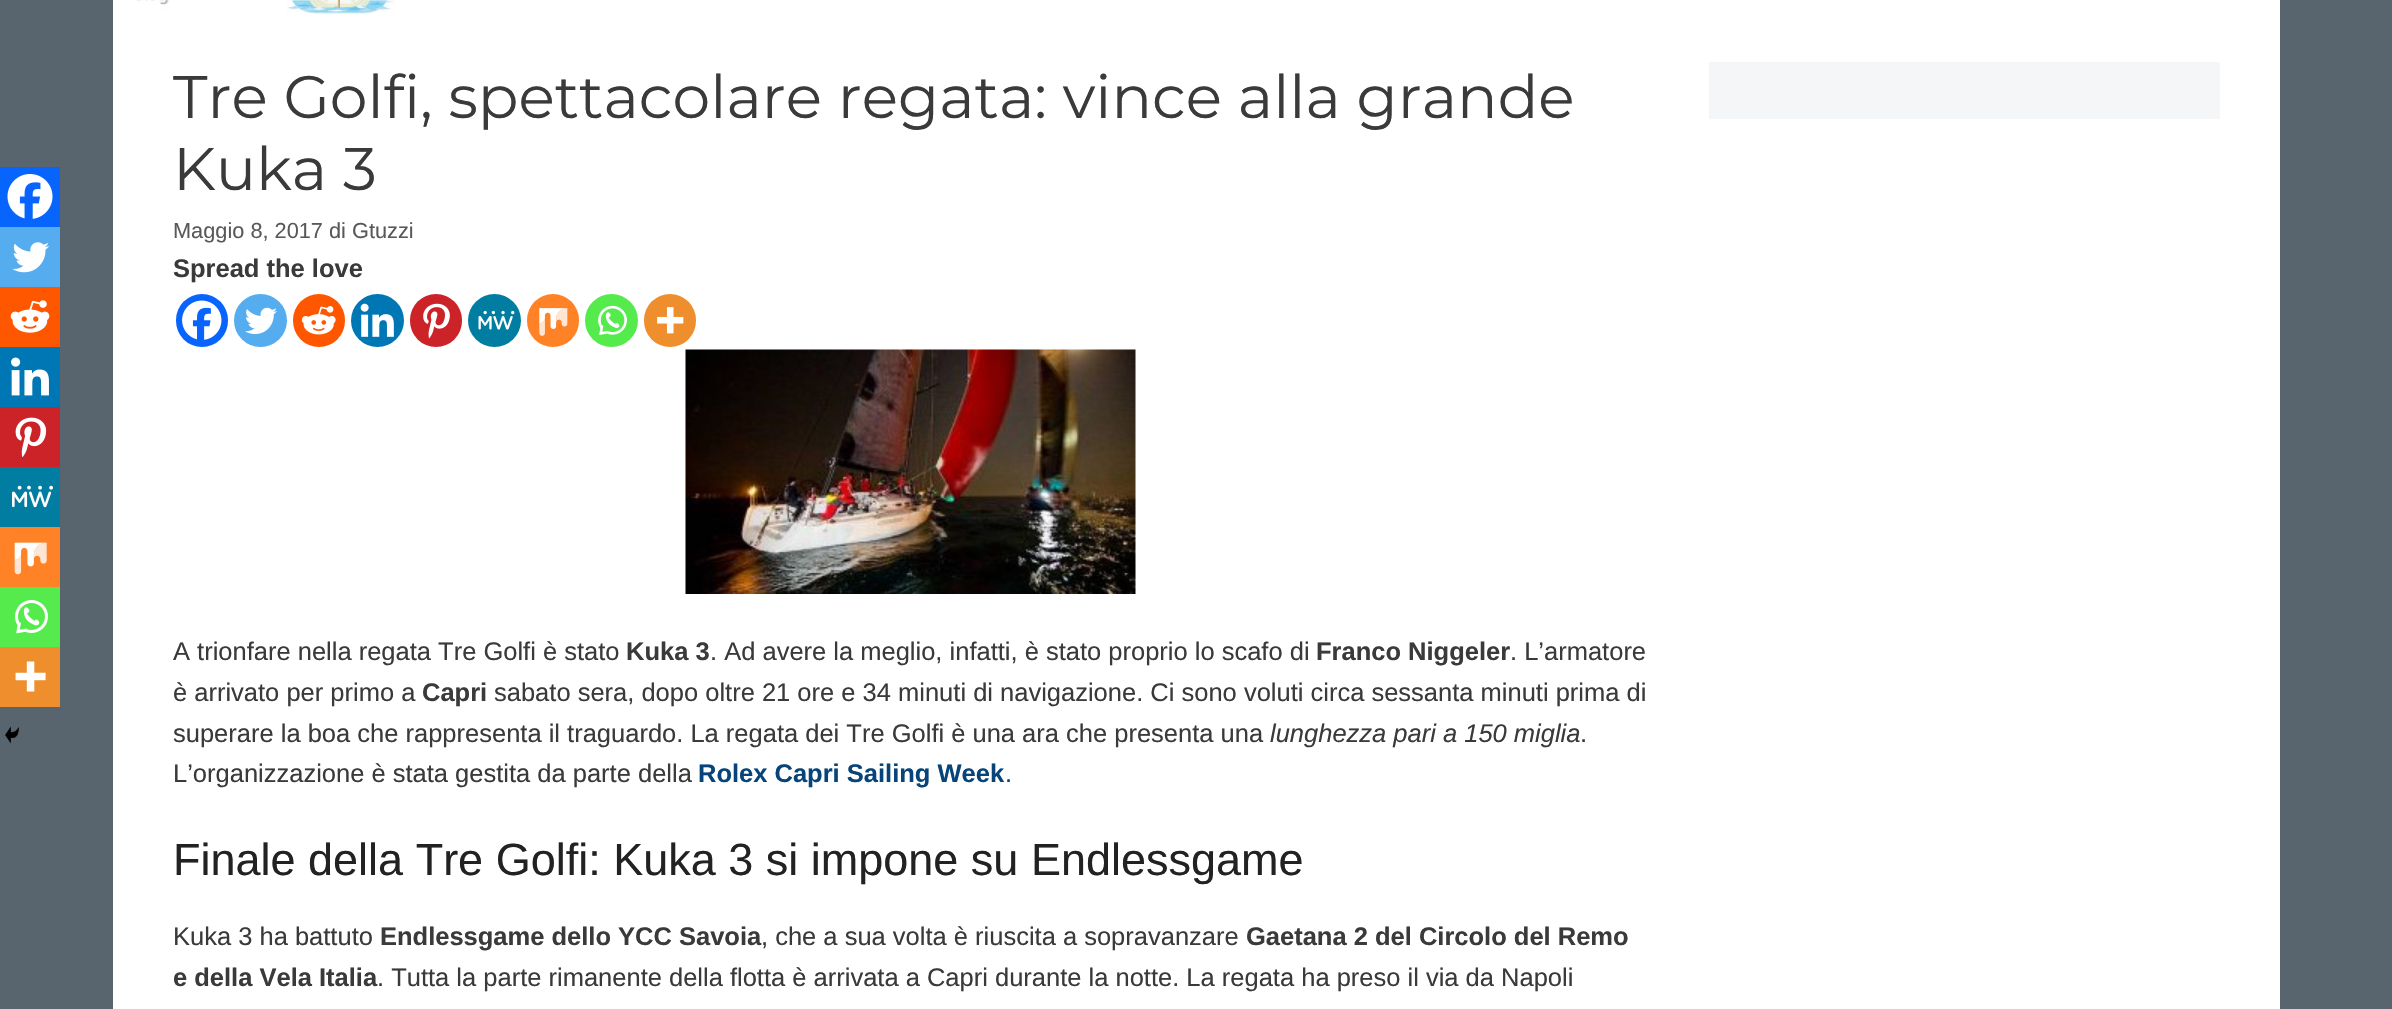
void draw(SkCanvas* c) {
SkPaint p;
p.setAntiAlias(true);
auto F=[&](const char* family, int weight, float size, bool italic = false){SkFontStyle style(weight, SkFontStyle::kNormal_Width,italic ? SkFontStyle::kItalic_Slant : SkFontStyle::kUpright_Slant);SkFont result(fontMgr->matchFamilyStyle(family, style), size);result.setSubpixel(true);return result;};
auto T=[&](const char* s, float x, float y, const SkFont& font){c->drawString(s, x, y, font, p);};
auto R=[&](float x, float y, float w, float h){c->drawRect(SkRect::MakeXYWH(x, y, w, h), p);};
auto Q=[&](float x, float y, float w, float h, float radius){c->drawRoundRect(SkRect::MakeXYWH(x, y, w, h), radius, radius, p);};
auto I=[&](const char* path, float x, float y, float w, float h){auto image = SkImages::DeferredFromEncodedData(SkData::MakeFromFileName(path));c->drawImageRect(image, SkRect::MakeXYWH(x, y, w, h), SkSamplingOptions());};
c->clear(0xff58656f);
p.setColor(0xffffffff);
R(113,0,2167,1009);
I("1.png",137,0,258,14);
auto f1 = F("Montserrat",400,60);
p.setColor(0xff3a3a3a);
T("Tre Golfi, spettacolare regata: vince alla grande",173,118,f1);
T("Kuka 3",173,190,f1);
auto f2 = F("Liberation Sans",400,21.75);
p.setColor(0xff595959);
T("Maggio 8, 2017 di Gtuzzi",173,238,f2);
p.setColor(0xff0765fe);
R(0,167,60,60);
I("2.png",7,174,46,45);
p.setColor(0xff55acee);
R(0,227,60,60);
I("3.png",12,242,37,31);
p.setColor(0xffff5700);
R(0,287,60,60);
I("4.png",10,300,40,33);
p.setColor(0xff0077b5);
R(0,347,60,60);
I("5.png",11,357,38,39);
p.setColor(0xffcc2329);
R(0,407,60,60);
I("6.png",15,417,32,40);
p.setColor(0xff007da1);
R(0,467,60,60);
I("7.png",12,485,41,23);
p.setColor(0xffff8226);
R(0,527,60,60);
I("8.png",14,542,33,33);
p.setColor(0xff55eb4c);
R(0,587,60,60);
I("9.png",15,600,33,34);
p.setColor(0xffee8e2d);
R(0,647,60,60);
I("10.png",15,661,31,31);
I("11.png",5,726,14,18);
auto f3 = F("Liberation Sans",700,25.5);
p.setColor(0xff3a3a3a);
T("Spread the love",173,277,f3);
p.setColor(0xff0765fe);
Q(176,294,52,53,26);
I("12.png",182,300,40,40);
p.setColor(0xff55acee);
c->drawCircle(260.5,320.5,26.5,p);
I("13.png",245,307,32,28);
p.setColor(0xffff5700);
Q(293,294,52,53,26);
I("14.png",301,306,35,29);
p.setColor(0xff0077b5);
c->drawCircle(377.5,320.5,26.5,p);
I("15.png",360,303,34,34);
p.setColor(0xffcc2329);
Q(410,294,52,53,26);
I("16.png",423,303,27,36);
p.setColor(0xff007da1);
c->drawCircle(494.5,320.5,26.5,p);
I("17.png",478,310,37,20);
p.setColor(0xffff8226);
Q(527,294,52,53,26);
I("18.png",539,308,29,28);
p.setColor(0xff55eb4c);
c->drawCircle(611.5,320.5,26.5,p);
I("19.png",598,305,29,30);
p.setColor(0xffee8e2d);
Q(644,294,52,53,26);
I("20.png",657,307,27,27);
I("21.png",685,349,451,245);
auto f4 = F("Liberation Sans",400,25.5);
p.setColor(0xff3a3a3a);
T("A trionfare nella regata Tre Golfi è stato",173,660,f4);
T("Kuka 3",626,660,f3);
T(". Ad avere la meglio, infatti, è stato proprio lo scafo di",710,660,f4);
T("Franco Niggeler",1316,660,f3);
T(". L’armatore",1510,660,f4);
T("è arrivato per primo a",173,701,f4);
T("Capri",422,701,f3);
T("sabato sera, dopo oltre 21 ore e 34 minuti di navigazione. Ci sono voluti circa sessanta minuti prima di",494,701,f4);
T("superare la boa che rappresenta il traguardo. La regata dei Tre Golfi è una ara che presenta una",173,742,f4);
auto f5 = F("Liberation Sans",400,25.5,true);
T("lunghezza pari a 150 miglia",1270,742,f5);
T(".",1580,742,f4);
T("L’organizzazione è stata gestita da parte della",173,782,f4);
p.setColor(0xff06447a);
T("Rolex Capri Sailing Week",698,782,f3);
T(".",1005,782,f4);
auto f6 = F("Liberation Sans",400,45);
p.setColor(0xff222222);
T("Finale della Tre Golfi: Kuka 3 si impone su Endlessgame",173,875,f6);
p.setColor(0xff3a3a3a);
T("Kuka 3 ha battuto",173,945,f4);
T("Endlessgame dello YCC Savoia",380,945,f3);
T(", che a sua volta è riuscita a sopravanzare",761,945,f4);
T("Gaetana 2 del Circolo del Remo",1246,945,f3);
T("e della Vela Italia",173,986,f3);
T(". Tutta la parte rimanente della flotta è arrivata a Capri durante la notte. La regata ha preso il via da Napoli",377,986,f4);
p.setColor(0xfff4f6f7);
R(1709,62,511,57);
}
